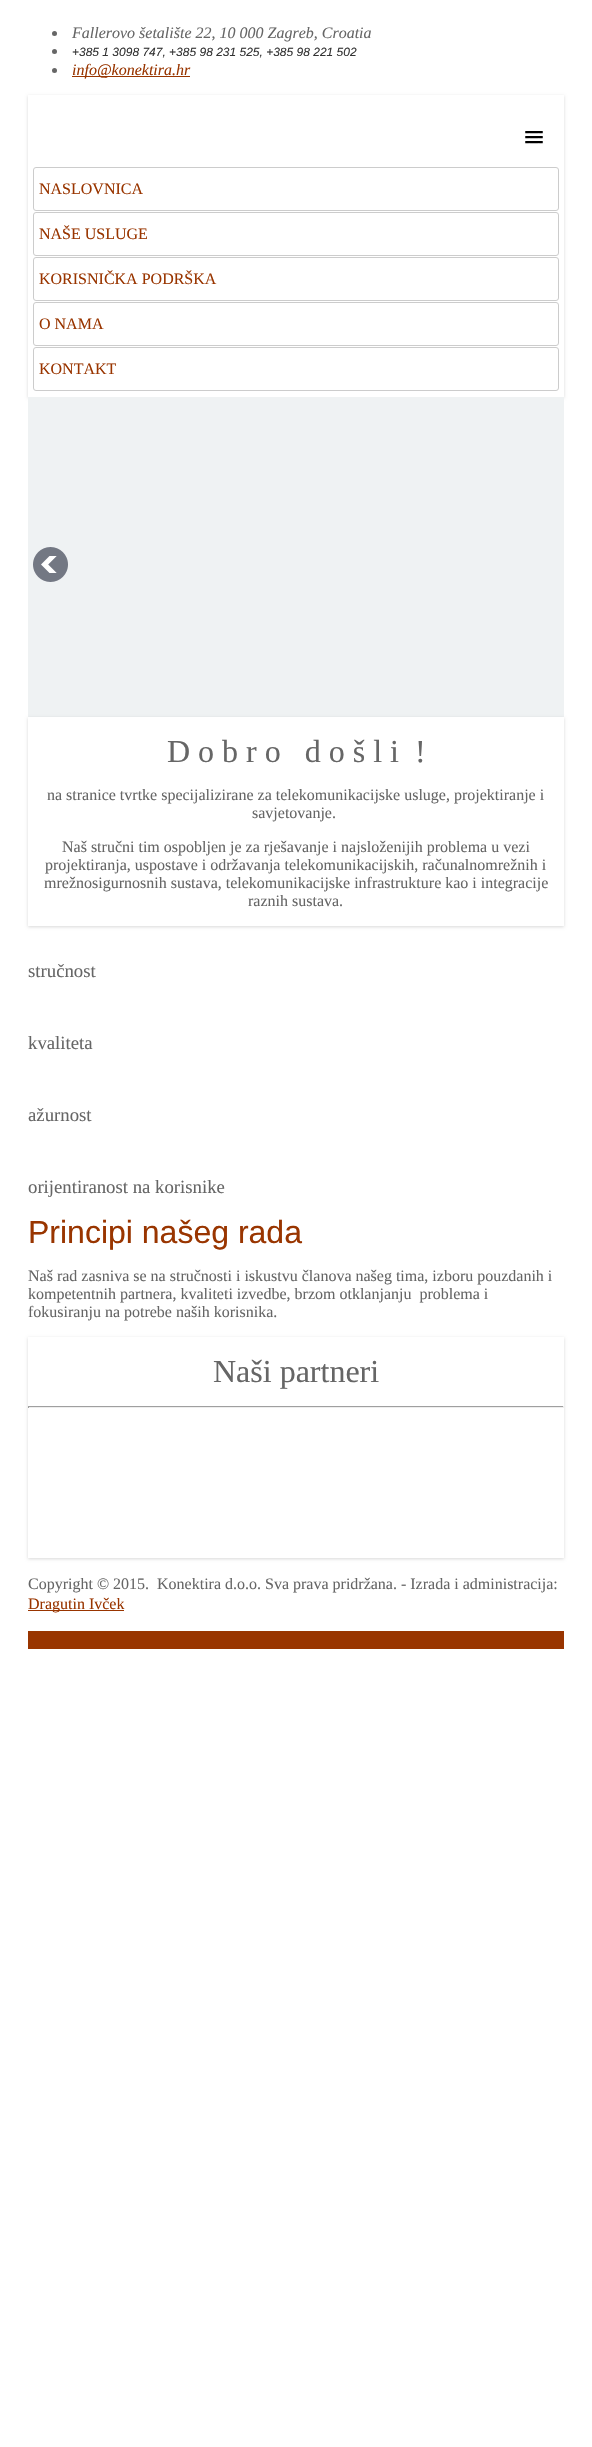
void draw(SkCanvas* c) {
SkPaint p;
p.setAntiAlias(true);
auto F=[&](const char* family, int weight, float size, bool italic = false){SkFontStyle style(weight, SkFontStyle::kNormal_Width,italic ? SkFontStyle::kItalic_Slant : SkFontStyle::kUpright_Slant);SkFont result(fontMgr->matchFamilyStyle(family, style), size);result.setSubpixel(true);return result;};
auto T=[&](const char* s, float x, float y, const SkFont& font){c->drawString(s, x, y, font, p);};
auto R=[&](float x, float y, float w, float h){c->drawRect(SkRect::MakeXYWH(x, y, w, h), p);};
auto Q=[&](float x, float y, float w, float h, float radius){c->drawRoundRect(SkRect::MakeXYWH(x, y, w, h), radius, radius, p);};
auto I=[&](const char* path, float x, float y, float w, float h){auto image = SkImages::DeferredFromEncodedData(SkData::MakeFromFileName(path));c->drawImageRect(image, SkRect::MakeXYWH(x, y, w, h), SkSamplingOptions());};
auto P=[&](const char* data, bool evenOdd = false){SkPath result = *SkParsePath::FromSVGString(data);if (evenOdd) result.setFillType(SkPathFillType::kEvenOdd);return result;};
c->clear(0xffffffff);
p.setColor(0xff666666);
c->drawCircle(54.5,33.5,2.5,p);
auto f1 = F("Liberation Serif",400,16,true);
T("Fallerovo šetalište 22, 10 000 Zagreb, Croatia",72,38,f1);
c->drawCircle(54.5,51.5,2.5,p);
auto f2 = F("Liberation Sans",400,12,true);
p.setColor(0xff333333);
T("+385 1 3098 747, +385 98 231 525, +385 98 221 502",72,56,f2);
p.setColor(0xff666666);
c->drawCircle(54.5,70.5,2.5,p);
p.setColor(0xff993500);
R(72,76,118,1);
T("info@konektira.hr",72,75,f1);
c->save();
c->clipPath(P("M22 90h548v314h-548zm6 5h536v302h-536z",true),true);
p.setColor(0x26000000);
p.setMaskFilter(SkMaskFilter::MakeBlur(kNormal_SkBlurStyle, 1.5));
c->drawRect(SkRect::MakeXYWH(28,96,536,302),p);
p.setMaskFilter(nullptr);
c->restore();
p.setColor(0xffbfbfbf);
c->drawPath(P("M525 132.5c-1 2 3.5 1.5 3.5 1.5h11c0 0 4.5 .5 3.5-1.5c-1 1-7.5 .5-9 .5c-1.5 0-8 .5-9-.5z"),p);
p.setColor(0xff000000);
Q(525,131,18,2,1);
p.setColor(0xffbfbfbf);
c->drawPath(P("M525 137.5c-1 2 3.5 1.5 3.5 1.5h11c0 0 4.5 .5 3.5-1.5c-1 1-7.5 .5-9 .5c-1.5 0-8 .5-9-.5z"),p);
p.setColor(0xff000000);
Q(525,136,18,2,1);
p.setColor(0xffbfbfbf);
c->drawPath(P("M525 142.5c-1 2 3.5 1.5 3.5 1.5h11c0 0 4.5 .5 3.5-1.5c-1 1-7.5 .5-9 .5c-1.5 0-8 .5-9-.5z"),p);
p.setColor(0xff000000);
Q(525,141,18,2,1);
p.setStroke(true);
p.setStrokeWidth(1);
p.setColor(0xffcccccc);
c->drawRoundRect(SkRect::MakeXYWH(33.5,167.5,525,43),2.5,2.5,p);
auto f3 = F("Liberation Serif",400,16);
p.setStroke(false);
p.setColor(0xff993500);
T("NASLOVNICA",39,194,f3);
p.setStroke(true);
p.setColor(0xffcccccc);
c->drawRoundRect(SkRect::MakeXYWH(33.5,212.5,525,43),2.5,2.5,p);
p.setStroke(false);
p.setColor(0xff993500);
T("NAŠE USLUGE",39,239,f3);
p.setStroke(true);
p.setColor(0xffcccccc);
c->drawRoundRect(SkRect::MakeXYWH(33.5,257.5,525,43),2.5,2.5,p);
p.setStroke(false);
p.setColor(0xff993500);
T("KORISNIČKA PODRŠKA",39,284,f3);
p.setStroke(true);
p.setColor(0xffcccccc);
c->drawRoundRect(SkRect::MakeXYWH(33.5,302.5,525,43),2.5,2.5,p);
p.setStroke(false);
p.setColor(0xff993500);
T("O NAMA",39,329,f3);
p.setStroke(true);
p.setColor(0xffcccccc);
c->drawRoundRect(SkRect::MakeXYWH(33.5,347.5,525,43),2.5,2.5,p);
p.setStroke(false);
p.setColor(0xff993500);
T("KONTAKT",39,374,f3);
p.setColor(0xffeff2f3);
R(28,397,536,320);
I("1.png",33,547,35,35);
c->save();
c->clipPath(P("M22 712h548v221h-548zm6 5h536v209h-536z",true),true);
p.setColor(0x26000000);
p.setMaskFilter(SkMaskFilter::MakeBlur(kNormal_SkBlurStyle, 1.5));
c->drawRect(SkRect::MakeXYWH(28,718,536,209),p);
p.setMaskFilter(nullptr);
c->restore();
auto f4 = F("Liberation Serif",400,32);
p.setColor(0xff666666);
T("D o b r o   d o š l i  !",167,762,f4);
T("na stranice tvrtke specijalizirane za telekomunikacijske usluge, projektiranje i",47,800,f3);
T("savjetovanje.",252,818,f3);
T("Naš stručni tim ospobljen je za rješavanje i najsloženijih problema u vezi",62,852,f3);
T("projektiranja, uspostave i održavanja telekomunikacijskih, računalnomrežnih i",45,870,f3);
T("mrežnosigurnosnih sustava, telekomunikacijske infrastrukture kao i integracije",44,888,f3);
T("raznih sustava.",248,906,f3);
auto f5 = F("Liberation Serif",400,18.75);
T("stručnost",28,977,f5);
T("kvaliteta",28,1049,f5);
T("ažurnost",28,1121,f5);
T("orijentiranost na korisnike",28,1193,f5);
auto f6 = F("Liberation Sans",400,32);
p.setColor(0xff993500);
T("Principi našeg rada",28,1243,f6);
p.setColor(0xff666666);
T("Naš rad zasniva se na stručnosti i iskustvu članova našeg tima, izboru pouzdanih i",28,1281,f3);
T("kompetentnih partnera, kvaliteti izvedbe, brzom otklanjanju  problema i",28,1299,f3);
T("fokusiranju na potrebe naših korisnika.",28,1317,f3);
c->save();
c->clipPath(P("M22 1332h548v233h-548zm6 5h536v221h-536z",true),true);
p.setColor(0x26000000);
p.setMaskFilter(SkMaskFilter::MakeBlur(kNormal_SkBlurStyle, 1.5));
c->drawRect(SkRect::MakeXYWH(28,1338,536,221),p);
p.setMaskFilter(nullptr);
c->restore();
p.setColor(0xff666666);
T("Naši partneri",213,1382,f4);
p.setColor(0xff9f9f9f);
R(28,1406,536,1);
p.setColor(0xffeeeeee);
R(563,1406,1,2);
R(28,1407,536,1);
p.setColor(0xff9f9f9f);
R(28,1406,1,2);
p.setColor(0xff666666);
T("Copyright © 2015.  Konektira d.o.o. Sva prava pridržana. - Izrada i administracija:",28,1589,f3);
p.setColor(0xff993500);
R(28,1610,96,1);
T("Dragutin Ivček",28,1609,f3);
R(28,1631,536,18);
}
